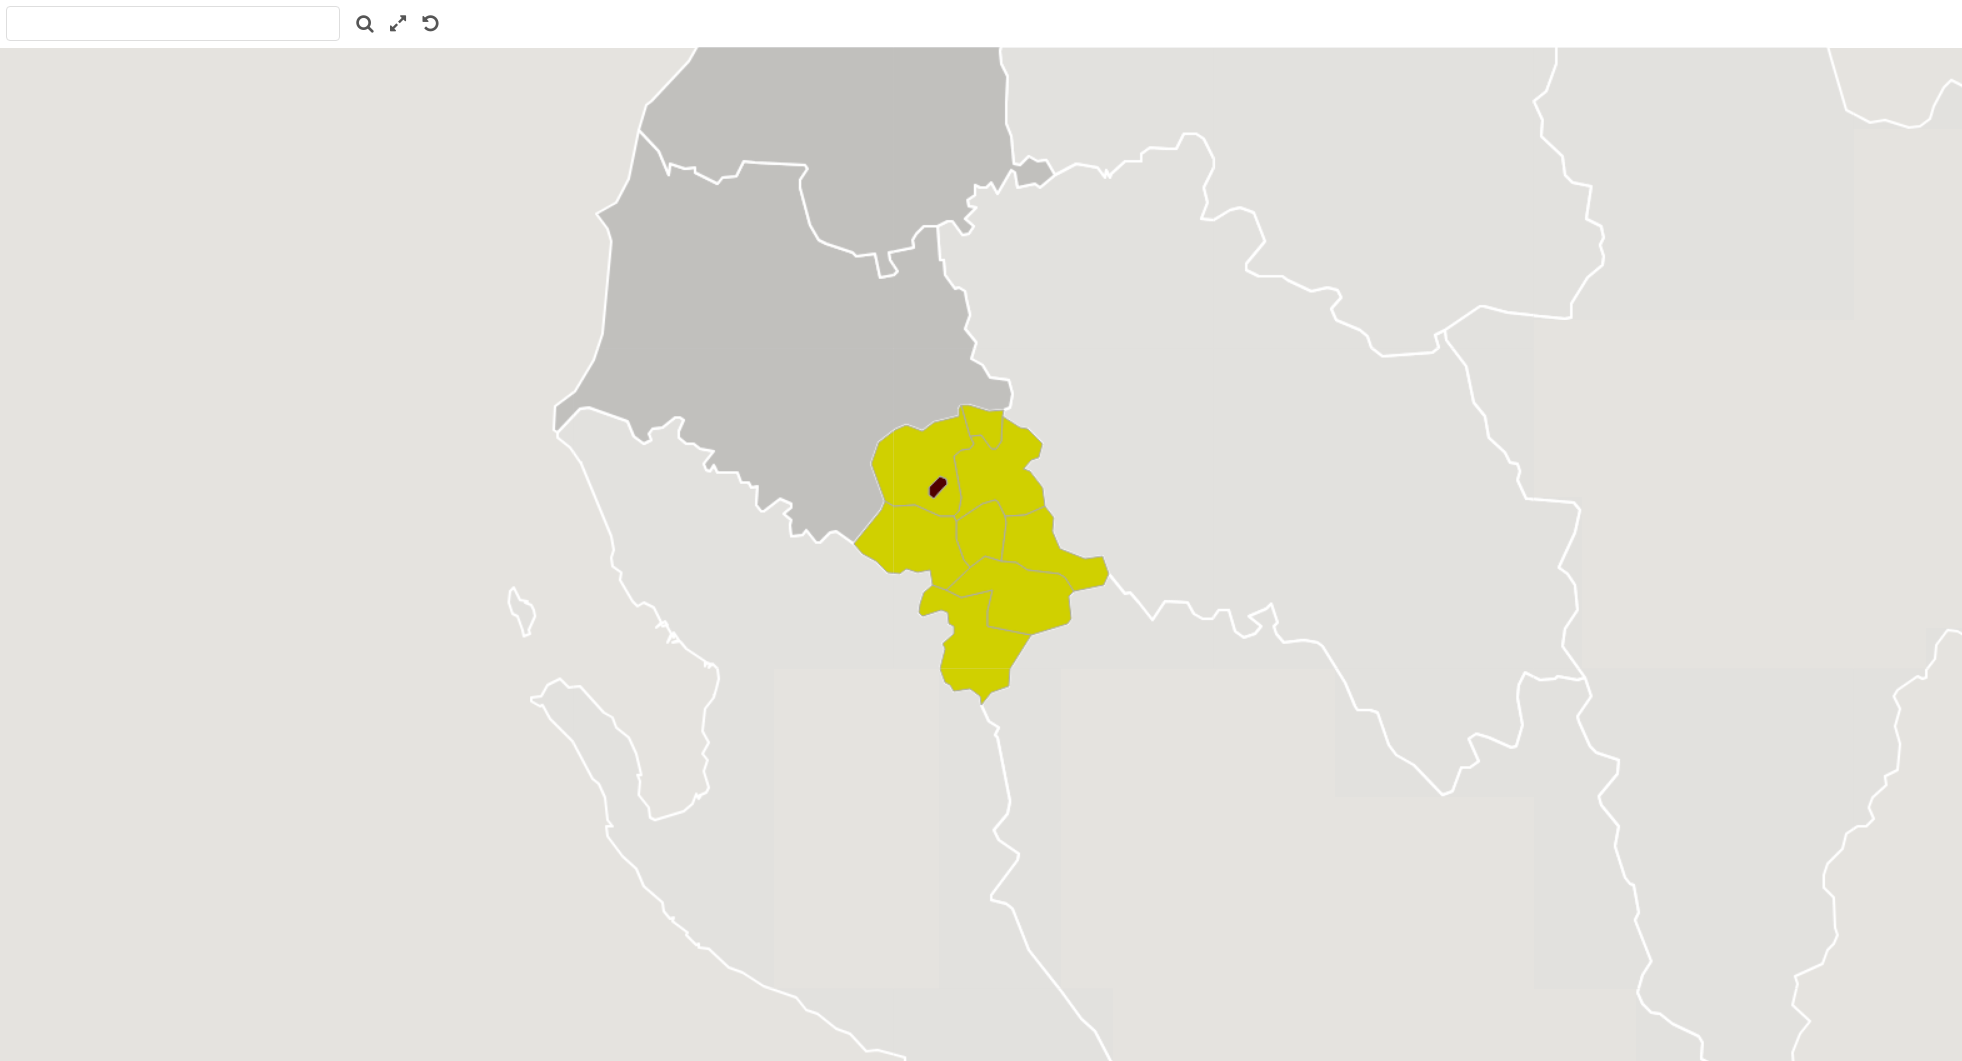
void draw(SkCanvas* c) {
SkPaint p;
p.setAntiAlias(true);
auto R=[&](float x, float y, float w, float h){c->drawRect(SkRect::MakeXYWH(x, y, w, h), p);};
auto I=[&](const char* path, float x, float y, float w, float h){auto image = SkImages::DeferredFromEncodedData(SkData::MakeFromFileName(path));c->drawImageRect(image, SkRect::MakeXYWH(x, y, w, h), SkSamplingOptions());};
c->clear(0xffffffff);
p.setStroke(true);
p.setStrokeWidth(1);
p.setColor(0xffdedede);
c->drawRoundRect(SkRect::MakeXYWH(6.5,6.5,333,34),3.5,3.5,p);
I("1.png",356,15,18,18);
I("2.png",390,15,17,17);
I("3.png",422,15,17,17);
p.setStroke(false);
p.setColor(0xffe5e3df);
R(0,48,1962,1013);
I("11.png",893,348,321,321);
I("10.png",573,348,321,321);
I("4.png",595,47,299,302);
I("5.png",893,47,321,302);
I("6.png",1213,47,321,302);
I("7.png",1533,47,321,273);
I("8.png",1853,78,109,51);
I("9.png",507,391,67,247);
I("12.png",1213,348,321,321);
I("13.png",1534,497,48,172);
I("14.png",1926,628,36,41);
I("16.png",573,669,201,320);
I("15.png",530,677,44,69);
I("17.png",939,668,122,321);
I("18.png",1335,668,199,129);
I("19.png",1534,668,320,321);
I("20.png",1853,668,76,163);
I("22.png",893,988,220,73);
I("21.png",767,988,127,68);
I("23.png",1636,989,176,72);
}
